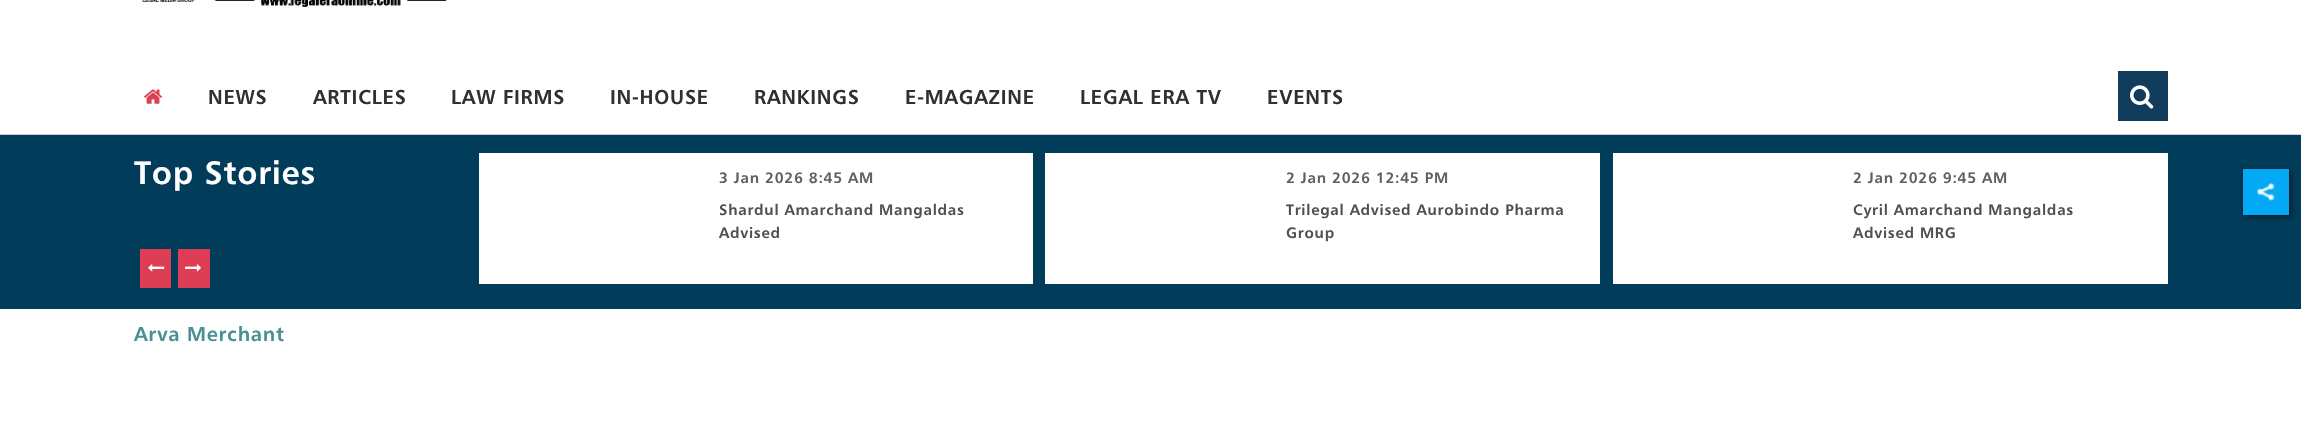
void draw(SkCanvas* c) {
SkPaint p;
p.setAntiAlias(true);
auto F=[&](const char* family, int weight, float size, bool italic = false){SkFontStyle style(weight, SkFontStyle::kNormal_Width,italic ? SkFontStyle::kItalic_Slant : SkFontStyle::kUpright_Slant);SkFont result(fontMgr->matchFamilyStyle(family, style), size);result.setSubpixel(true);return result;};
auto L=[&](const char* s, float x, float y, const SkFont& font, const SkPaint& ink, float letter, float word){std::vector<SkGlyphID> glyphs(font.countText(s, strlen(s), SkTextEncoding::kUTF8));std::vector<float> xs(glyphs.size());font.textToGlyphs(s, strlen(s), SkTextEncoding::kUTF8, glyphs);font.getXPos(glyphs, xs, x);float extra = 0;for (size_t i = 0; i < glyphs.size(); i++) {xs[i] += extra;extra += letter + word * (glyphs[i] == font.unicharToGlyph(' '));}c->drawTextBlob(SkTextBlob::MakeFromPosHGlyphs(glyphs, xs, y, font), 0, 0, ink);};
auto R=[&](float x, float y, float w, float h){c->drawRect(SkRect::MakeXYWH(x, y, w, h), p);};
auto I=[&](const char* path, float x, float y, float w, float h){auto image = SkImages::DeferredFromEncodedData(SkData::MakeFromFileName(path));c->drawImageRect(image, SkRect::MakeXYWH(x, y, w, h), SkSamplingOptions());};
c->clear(0xffffffff);
p.setColor(0xffcccccc);
R(0,134,2301,1);
I("1.png",142,0,305,7);
I("2.png",144,89,18,15);
auto f1 = F("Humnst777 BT",700,20);
p.setColor(0xff303030);
L("NEWS",208,104,f1,p,.75,0);
L("ARTICLES",313,104,f1,p,.75,0);
L("LAW FIRMS",451,104,f1,p,.75,0);
L("IN-HOUSE",610,104,f1,p,.75,0);
L("RANKINGS",754,104,f1,p,.75,0);
L("E-MAGAZINE",905,104,f1,p,.75,0);
L("LEGAL ERA TV",1080,104,f1,p,.75,0);
L("EVENTS",1267,104,f1,p,.75,0);
p.setColor(0xff123c5b);
R(2118,71,50,50);
I("3.png",2130,85,24,24);
p.setColor(0xff023c5b);
R(0,135,2301,174);
auto f2 = F("Humnst777 BT",700,32.5);
p.setColor(0xffffffff);
L("Top Stories",134,184,f2,p,.75,0);
p.setColor(0xffde3e53);
R(140,249,31,39);
I("4.png",148,264,17,8);
R(178,249,32,39);
I("5.png",185,264,16,8);
p.setColor(0xffffffff);
R(479,153,554,131);
auto f3 = F("Humnst777 BT",700,15);
p.setColor(0xff606060);
L("3 Jan 2026 8:45 AM",719,183,f3,p,.75,0);
p.setColor(0xff505050);
L("Shardul Amarchand Mangaldas",719,215,f3,p,.75,0);
L("Advised",719,238,f3,p,.75,0);
p.setColor(0xffffffff);
R(1045,153,555,131);
p.setColor(0xff606060);
L("2 Jan 2026 12:45 PM",1286,183,f3,p,.75,0);
p.setColor(0xff505050);
L("Trilegal Advised Aurobindo Pharma",1286,215,f3,p,.75,0);
L("Group",1286,238,f3,p,.75,0);
p.setColor(0xffffffff);
R(1613,153,555,131);
p.setColor(0xff606060);
L("2 Jan 2026 9:45 AM",1853,183,f3,p,.75,0);
p.setColor(0xff505050);
L("Cyril Amarchand Mangaldas",1853,215,f3,p,.75,0);
L("Advised MRG",1853,238,f3,p,.75,0);
p.setColor(0xff499094);
L("Arva Merchant",134,341,f1,p,.75,0);
p.setColor(0x40000000);
p.setMaskFilter(SkMaskFilter::MakeBlur(kNormal_SkBlurStyle, 2));
c->drawRect(SkRect::MakeXYWH(2246,173,47,46),p);
p.setMaskFilter(nullptr);
p.setColor(0x80000000);
p.setMaskFilter(SkMaskFilter::MakeBlur(kNormal_SkBlurStyle, 2));
c->drawRect(SkRect::MakeXYWH(2243,169,46,46),p);
p.setMaskFilter(nullptr);
p.setColor(0xff03a9f4);
R(2243,169,46,46);
I("6.png",2257,183,18,18);
}
